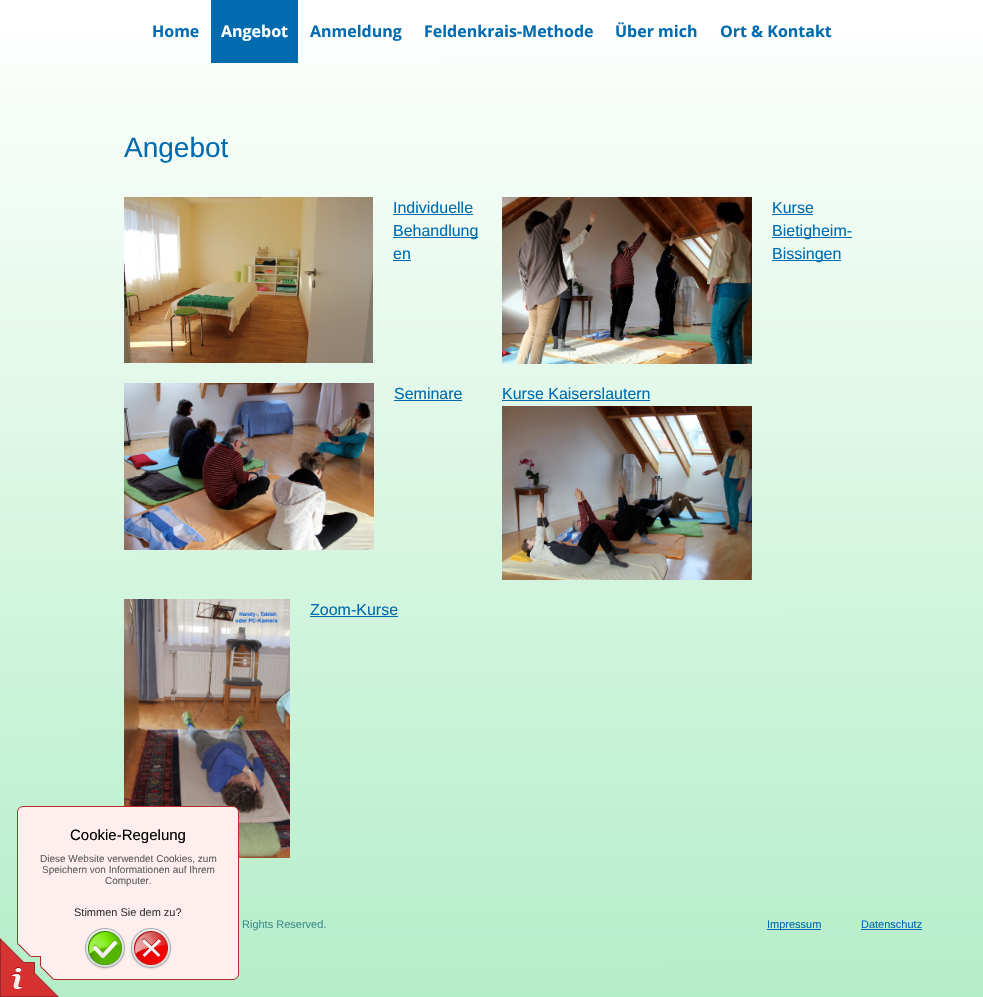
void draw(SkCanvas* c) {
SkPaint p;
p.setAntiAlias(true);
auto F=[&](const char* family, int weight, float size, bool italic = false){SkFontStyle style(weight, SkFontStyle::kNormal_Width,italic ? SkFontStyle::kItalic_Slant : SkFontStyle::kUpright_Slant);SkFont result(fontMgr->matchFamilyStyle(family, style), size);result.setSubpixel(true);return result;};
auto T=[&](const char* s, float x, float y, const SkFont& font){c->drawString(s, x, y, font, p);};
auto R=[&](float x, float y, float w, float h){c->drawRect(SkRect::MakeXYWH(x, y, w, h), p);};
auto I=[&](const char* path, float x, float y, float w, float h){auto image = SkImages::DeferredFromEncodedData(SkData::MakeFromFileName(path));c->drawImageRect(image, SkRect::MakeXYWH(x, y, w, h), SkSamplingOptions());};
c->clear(0xffffffff);
{
const SkColor colors[] = {0xffffffff,0xffb4eec8};
const float stops[] = {0,1};
const SkPoint ends[] = {{491,0}, {492,997}};
p.setShader(SkGradientShader::MakeLinear(ends, colors, stops, 2, SkTileMode::kClamp));
p.setAlpha(255);
}
R(0,33,983,964);
auto f1 = F("Open Sans",700,16);
p.setShader(nullptr);
p.setColor(0xff006baf);
T("Home",152,37,f1);
R(211,0,87,63);
p.setColor(0xffffffff);
T("Angebot",221,37,f1);
p.setColor(0xff006baf);
T("Anmeldung",310,37,f1);
T("Feldenkrais-Methode",424,37,f1);
T("Über mich",615,37,f1);
T("Ort & Kontakt",720,37,f1);
auto f2 = F("Liberation Sans",400,28);
T("Angebot",124,157,f2);
I("1.png",124,197,249,166);
auto f3 = F("Liberation Sans",400,16);
T("Individuelle",393,213,f3);
R(393,214,80,1);
R(393,237,85,1);
T("Behandlung",393,236,f3);
T("en",393,259,f3);
R(393,260,18,1);
I("2.png",502,197,250,167);
T("Kurse",772,213,f3);
R(772,214,41,1);
R(772,237,80,1);
T("Bietigheim-",772,236,f3);
R(772,260,69,1);
T("Bissingen",772,259,f3);
I("3.png",124,383,250,167);
T("Seminare",394,399,f3);
R(394,400,68,1);
T("Kurse Kaiserslautern",502,399,f3);
R(502,400,148,1);
I("4.png",502,406,250,174);
I("5.png",124,599,166,259);
T("Zoom-Kurse",310,615,f3);
R(310,616,88,1);
auto f4 = F("Liberation Sans",400,11);
p.setColor(0xff418d8c);
T("Rights Reserved.",242,928,f4);
p.setColor(0xff006baf);
R(767,929,54,1);
T("Impressum",767,928,f4);
T("Datenschutz",861,928,f4);
R(861,929,61,1);
I("9.png",0,938,59,59);
I("6.png",17,806,222,174);
auto f5 = F("Liberation Sans",400,15);
p.setColor(0xff000000);
T("Cookie-Regelung",70,840,f5);
auto f6 = F("Liberation Sans",400,10);
p.setColor(0xff5e5e5e);
T("Diese Website verwendet Cookies, zum",40,862,f6);
T("Speichern von Informationen auf Ihrem",42,873,f6);
T("Computer.",105,884,f6);
p.setColor(0xff383838);
T("Stimmen Sie dem zu?",74,916,f4);
I("7.png",84,928,42,42);
I("8.png",130,928,42,42);
}
